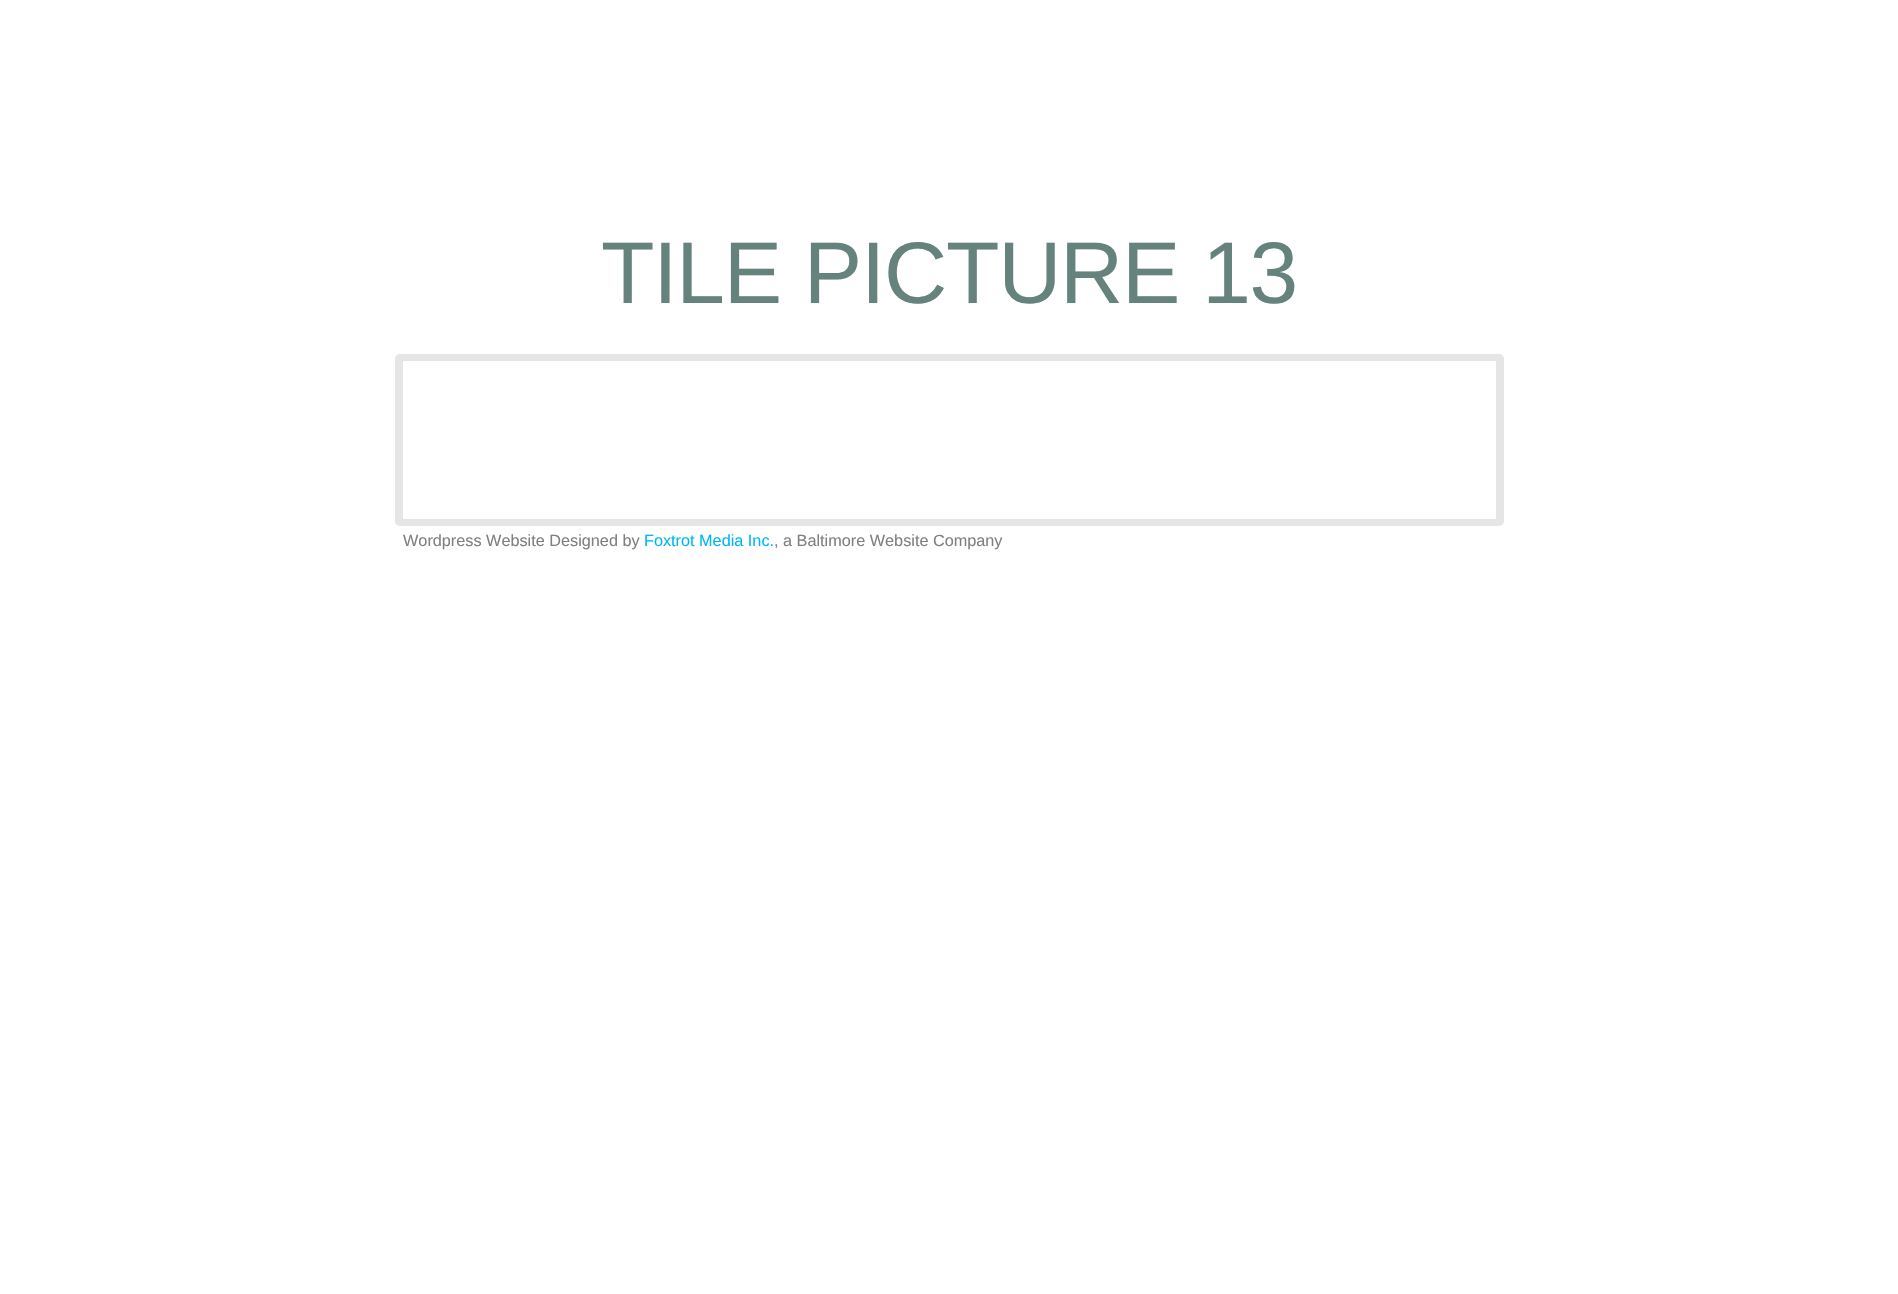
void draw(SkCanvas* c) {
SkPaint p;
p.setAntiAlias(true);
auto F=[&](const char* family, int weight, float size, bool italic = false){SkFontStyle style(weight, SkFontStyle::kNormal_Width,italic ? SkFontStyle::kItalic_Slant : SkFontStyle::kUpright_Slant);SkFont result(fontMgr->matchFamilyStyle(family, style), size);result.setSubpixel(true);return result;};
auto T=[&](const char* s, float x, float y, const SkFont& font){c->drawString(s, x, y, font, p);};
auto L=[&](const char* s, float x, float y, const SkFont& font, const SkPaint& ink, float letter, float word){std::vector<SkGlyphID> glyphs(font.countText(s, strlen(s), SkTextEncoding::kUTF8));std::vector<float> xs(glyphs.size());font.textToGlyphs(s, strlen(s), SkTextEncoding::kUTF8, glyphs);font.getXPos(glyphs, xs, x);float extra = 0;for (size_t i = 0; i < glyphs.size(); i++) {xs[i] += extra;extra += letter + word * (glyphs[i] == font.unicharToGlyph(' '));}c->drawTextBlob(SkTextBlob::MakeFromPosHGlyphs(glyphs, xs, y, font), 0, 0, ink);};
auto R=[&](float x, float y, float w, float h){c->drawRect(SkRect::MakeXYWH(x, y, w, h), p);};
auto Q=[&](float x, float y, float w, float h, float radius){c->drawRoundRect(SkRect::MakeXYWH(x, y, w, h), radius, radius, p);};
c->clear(0xffffffff);
auto f1 = F("Liberation Sans",400,87.5);
p.setColor(0xff65827d);
L("TILE PICTURE 13",601,303,f1,p,-1.25,0);
p.setColor(0x1a000000);
Q(395,354,1109,172,5);
p.setColor(0xffffffff);
R(403,361,1093,158);
auto f2 = F("Liberation Sans",400,16.25);
p.setColor(0xff7f7f7f);
T("Wordpress Website Designed by",403,546,f2);
p.setColor(0xff00b7f3);
T("Foxtrot Media Inc.",644,546,f2);
p.setColor(0xff7f7f7f);
T(", a Baltimore Website Company",774,546,f2);
}
